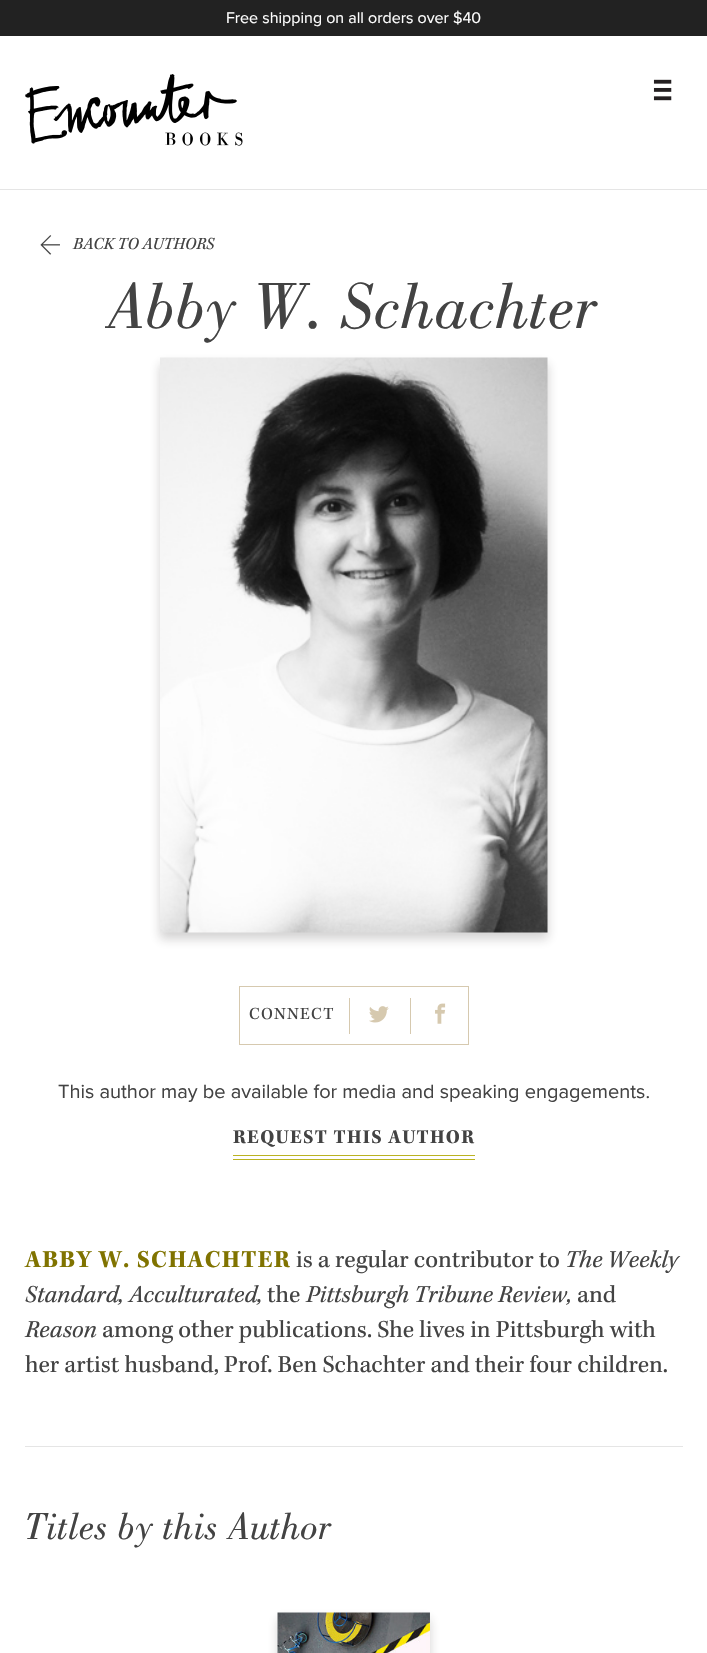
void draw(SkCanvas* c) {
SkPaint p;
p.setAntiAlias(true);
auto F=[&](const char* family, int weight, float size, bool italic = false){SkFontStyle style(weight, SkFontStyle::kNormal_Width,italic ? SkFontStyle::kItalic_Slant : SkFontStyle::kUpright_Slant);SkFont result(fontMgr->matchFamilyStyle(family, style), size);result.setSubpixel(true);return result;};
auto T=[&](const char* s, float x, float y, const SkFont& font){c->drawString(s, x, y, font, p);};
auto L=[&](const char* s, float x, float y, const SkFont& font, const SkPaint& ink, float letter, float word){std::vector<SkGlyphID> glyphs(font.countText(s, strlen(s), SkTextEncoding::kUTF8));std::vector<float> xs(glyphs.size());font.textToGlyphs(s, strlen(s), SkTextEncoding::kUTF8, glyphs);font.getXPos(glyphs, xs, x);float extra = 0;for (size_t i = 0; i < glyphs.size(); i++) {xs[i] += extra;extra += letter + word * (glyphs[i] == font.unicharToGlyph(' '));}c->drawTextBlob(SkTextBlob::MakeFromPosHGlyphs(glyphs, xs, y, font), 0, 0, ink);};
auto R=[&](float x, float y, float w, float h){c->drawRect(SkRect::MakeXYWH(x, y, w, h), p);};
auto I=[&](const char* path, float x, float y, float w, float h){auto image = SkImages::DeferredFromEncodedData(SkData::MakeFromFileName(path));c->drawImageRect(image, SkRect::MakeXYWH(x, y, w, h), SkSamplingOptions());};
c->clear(0xffffffff);
p.setColor(0xff222222);
R(0,0,707,36);
auto f1 = F("Proxima Nova",400,16);
p.setColor(0xffffffff);
T("Free shipping on all orders over $40",226,23,f1);
I("1.png",25,74,218,72);
I("2.png",653,79,19,22);
p.setColor(0xffe5e5e5);
R(0,189,707,1);
I("3.png",40,235,20,20);
auto f2 = F("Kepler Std",400,17.5,true);
p.setColor(0xff434343);
T("BACK TO AUTHORS",73,249,f2);
auto f3 = F("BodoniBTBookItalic",400,68.75);
T("Abby W. Schachter",109,328,f3);
p.setColor(0x33231f20);
p.setMaskFilter(SkMaskFilter::MakeBlur(kNormal_SkBlurStyle, 5));
c->drawRect(SkRect::MakeXYWH(160,364,388,575),p);
p.setMaskFilter(nullptr);
I("4.png",160,357,388,576);
p.setStroke(true);
p.setStrokeWidth(1);
p.setColor(0xffd6c9af);
c->drawRect(SkRect::MakeXYWH(239.5,986.5,229,58),p);
auto f4 = F("Kepler Std",400,17.5);
p.setStroke(false);
p.setColor(0xff434343);
L("CONNECT",249,1019,f4,p,1.25,0);
p.setColor(0xffd6c9af);
R(349,998,1,36);
I("5.png",369,1006,20,17);
R(410,998,1,36);
I("6.png",435,1003,11,21);
auto f5 = F("Proxima Nova",400,20);
p.setColor(0xff434343);
T("This author may be available for media and speaking engagements.",58,1098,f5);
p.setColor(0xffbbb322);
R(233,1155,242,1);
auto f6 = F("Kepler Std",700,20);
p.setColor(0xff434343);
L("REQUEST THIS AUTHOR",233,1143,f6,p,1.25,0);
p.setColor(0xffbbb322);
R(233,1159,242,1);
auto f7 = F("Kepler Std",700,25);
p.setColor(0xff807300);
L("ABBY W. SCHACHTER",25,1267,f7,p,1.25,0);
auto f8 = F("Kepler Std",400,25);
p.setColor(0xff434343);
T("is a regular contributor to",296,1267,f8);
auto f9 = F("Kepler Std",400,25,true);
T("The Weekly",565,1267,f9);
T("Standard, Acculturated,",25,1302,f9);
T("the",267,1302,f8);
T("Pittsburgh Tribune Review,",306,1302,f9);
T("and",577,1302,f8);
T("Reason",25,1337,f9);
T("among other publications. She lives in Pittsburgh with",102,1337,f8);
T("her artist husband, Prof. Ben Schachter and their four children.",25,1372,f8);
p.setColor(0xffe5e5e5);
R(25,1446,658,1);
auto f10 = F("BodoniBTBookItalic",400,40);
p.setColor(0xff434343);
T("Titles by this Author",25,1539,f10);
p.setColor(0x33231f20);
p.setMaskFilter(SkMaskFilter::MakeBlur(kNormal_SkBlurStyle, 5));
c->drawRect(SkRect::MakeXYWH(278,1619,152,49),p);
p.setMaskFilter(nullptr);
I("7.png",277,1612,153,41);
}
